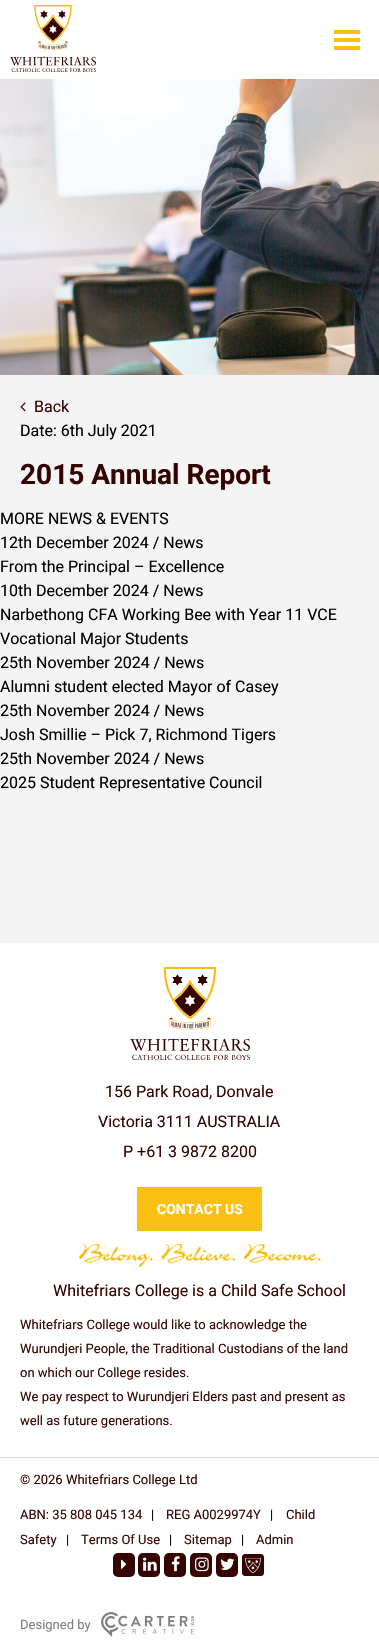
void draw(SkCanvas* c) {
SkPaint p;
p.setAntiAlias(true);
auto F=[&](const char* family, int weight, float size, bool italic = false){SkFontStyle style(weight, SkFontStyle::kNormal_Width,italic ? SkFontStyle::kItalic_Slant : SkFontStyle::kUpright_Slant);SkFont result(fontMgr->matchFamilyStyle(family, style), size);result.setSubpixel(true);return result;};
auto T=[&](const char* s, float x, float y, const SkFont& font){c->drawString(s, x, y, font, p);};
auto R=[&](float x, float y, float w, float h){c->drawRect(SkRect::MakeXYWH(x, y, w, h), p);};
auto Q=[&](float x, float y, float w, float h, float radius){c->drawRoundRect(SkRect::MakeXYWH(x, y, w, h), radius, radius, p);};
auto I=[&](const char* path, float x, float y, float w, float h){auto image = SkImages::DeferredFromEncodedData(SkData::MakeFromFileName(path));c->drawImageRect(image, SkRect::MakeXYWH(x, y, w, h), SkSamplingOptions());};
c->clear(0xffffffff);
I("1.png",10,5,86,67);
p.setColor(0xfffac014);
Q(334,38,26,4,.5);
Q(334,30,26,4,.5);
Q(334,46,26,4,.5);
I("2.png",0,79,379,296);
p.setColor(0xfff4f4f4);
R(0,375,379,568);
I("3.png",20,402,6,10);
auto f1 = F("Roboto",400,16);
p.setColor(0xff350400);
T("Back",34,412,f1);
p.setColor(0xff000000);
T("Date: 6th July 2021",20,436,f1);
auto f2 = F("Roboto",700,28);
p.setColor(0xff350400);
T("2015 Annual Report",20,484,f2);
p.setColor(0xff000000);
T("MORE NEWS & EVENTS",0,524,f1);
T("12th December 2024 / News",0,548,f1);
T("From the Principal – Excellence",0,572,f1);
T("10th December 2024 / News",0,596,f1);
T("Narbethong CFA Working Bee with Year 11 VCE",0,620,f1);
T("Vocational Major Students",0,644,f1);
T("25th November 2024 / News",0,668,f1);
T("Alumni student elected Mayor of Casey",0,692,f1);
T("25th November 2024 / News",0,716,f1);
T("Josh Smillie – Pick 7, Richmond Tigers",0,740,f1);
T("25th November 2024 / News",0,764,f1);
T("2025 Student Representative Council",0,788,f1);
I("4.png",130,967,120,93);
p.setColor(0xff350400);
T("156 Park Road, Donvale",105,1097,f1);
T("Victoria 3111 AUSTRALIA",98,1127,f1);
T("P +61 3 9872 8200",123,1157,f1);
p.setColor(0xfffac014);
R(137,1187,125,44);
auto f3 = F("Roboto",700,14);
p.setColor(0xffffffff);
T("CONTACT US",157,1214,f3);
I("5.png",79,1244,242,23);
p.setColor(0xff350400);
T("Whitefriars College is a Child Safe School",53,1296,f1);
auto f4 = F("Roboto",400,13);
T("Whitefriars College would like to acknowledge the",20,1329,f4);
T("Wurundjeri People, the Traditional Custodians of the land",20,1353,f4);
T("on which our College resides.",20,1377,f4);
T("We pay respect to Wurundjeri Elders past and present as",20,1401,f4);
T("well as future generations.",20,1425,f4);
p.setColor(0xffd8d8d8);
R(0,1457,379,1);
p.setColor(0xff350400);
T("© 2026 Whitefriars College Ltd",20,1484,f4);
T("ABN: 35 808 045 134",20,1519,f4);
p.setColor(0xff000000);
T("|",151,1519,f4);
p.setColor(0xff350400);
T("REG A0029974Y",166,1519,f4);
p.setColor(0xff000000);
T("|",270,1519,f4);
p.setColor(0xff350400);
T("Child",286,1519,f4);
T("Safety",20,1544,f4);
p.setColor(0xff000000);
T("|",66,1544,f4);
p.setColor(0xff350400);
T("Terms Of Use",81,1544,f4);
p.setColor(0xff000000);
T("|",169,1544,f4);
p.setColor(0xff350400);
T("Sitemap",184,1544,f4);
p.setColor(0xff000000);
T("|",241,1544,f4);
p.setColor(0xff350400);
T("Admin",256,1544,f4);
Q(113,1553,22,24,5);
I("6.png",121,1559,6,10);
Q(138,1553,22,24,5);
I("7.png",143,1557,14,14);
Q(164,1553,22,24,5);
I("8.png",171,1556,9,16);
Q(190,1553,22,24,5);
I("9.png",195,1557,14,15);
Q(216,1553,22,24,5);
I("10.png",220,1558,15,12);
I("11.png",242,1554,22,22);
p.setColor(0xff808080);
T("Designed by",20,1629,f4);
I("12.png",101,1612,93,25);
}
